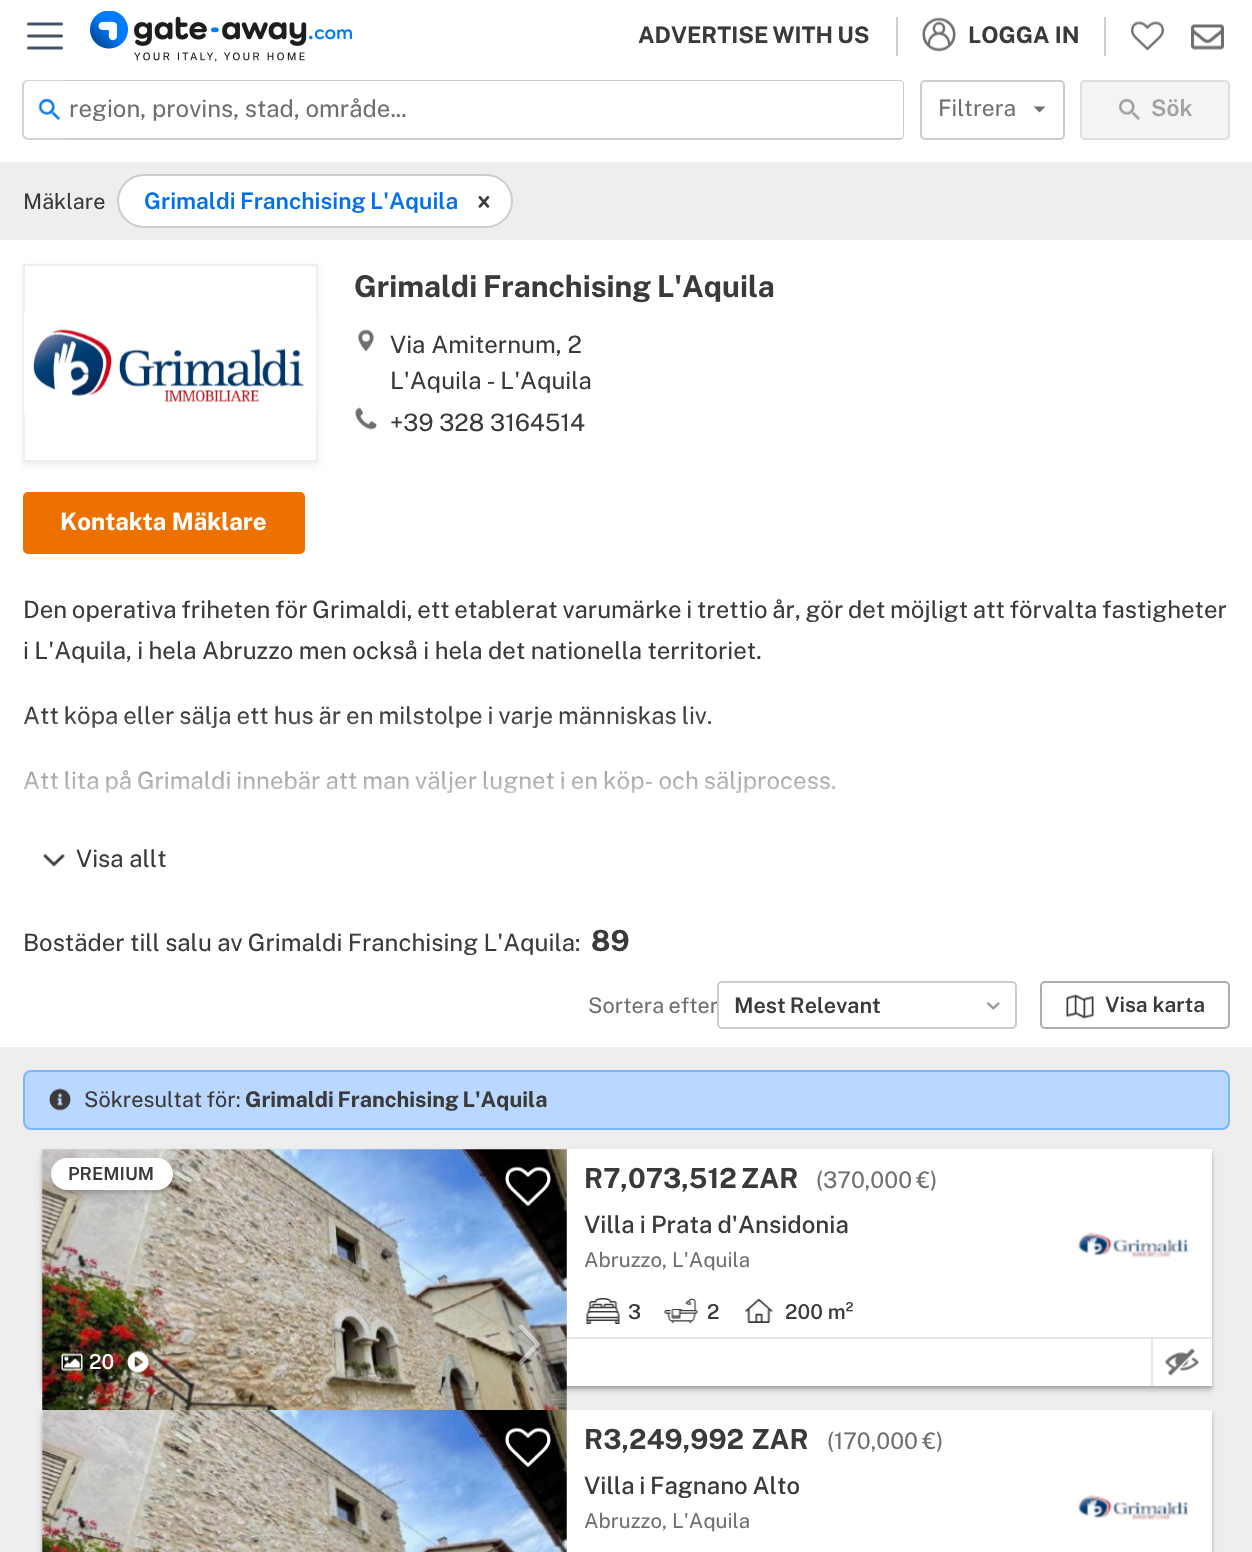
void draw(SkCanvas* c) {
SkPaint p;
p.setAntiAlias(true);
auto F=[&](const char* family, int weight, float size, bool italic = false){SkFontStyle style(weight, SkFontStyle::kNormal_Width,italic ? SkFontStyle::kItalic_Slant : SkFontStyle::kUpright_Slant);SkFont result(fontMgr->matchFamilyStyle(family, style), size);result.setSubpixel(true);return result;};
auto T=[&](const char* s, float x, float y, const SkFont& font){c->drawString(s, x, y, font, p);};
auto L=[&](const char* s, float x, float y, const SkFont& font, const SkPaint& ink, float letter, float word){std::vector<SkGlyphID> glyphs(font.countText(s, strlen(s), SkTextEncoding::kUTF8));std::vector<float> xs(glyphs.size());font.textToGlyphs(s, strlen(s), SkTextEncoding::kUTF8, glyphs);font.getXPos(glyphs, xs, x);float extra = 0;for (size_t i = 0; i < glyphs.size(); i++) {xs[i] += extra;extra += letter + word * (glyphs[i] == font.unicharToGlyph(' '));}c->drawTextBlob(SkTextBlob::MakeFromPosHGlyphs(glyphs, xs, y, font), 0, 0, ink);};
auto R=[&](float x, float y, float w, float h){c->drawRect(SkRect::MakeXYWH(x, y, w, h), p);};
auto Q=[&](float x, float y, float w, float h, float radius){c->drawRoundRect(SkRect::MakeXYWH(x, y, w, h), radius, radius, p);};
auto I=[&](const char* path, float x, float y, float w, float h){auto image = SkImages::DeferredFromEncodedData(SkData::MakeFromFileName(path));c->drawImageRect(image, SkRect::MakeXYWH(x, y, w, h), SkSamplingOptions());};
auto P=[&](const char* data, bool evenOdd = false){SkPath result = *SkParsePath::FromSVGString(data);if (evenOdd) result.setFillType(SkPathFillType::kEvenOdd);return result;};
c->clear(0xffffffff);
p.setStroke(true);
p.setStrokeWidth(3);
p.setStrokeCap(SkPaint::kRound_Cap);
p.setColor(0xff475361);
c->drawPath(P("M28.5 24h33m-33 12h33m-33 12h33"),p);
I("1.png",90,11,262,51);
p.setStroke(false);
p.setColor(0xffcccccc);
R(896,17,2,39);
auto f1 = F("Public Sans",700,22.75);
p.setColor(0xff3a3a3a);
L("ADVERTISE WITH US",638,43,f1,p,0,-1);
p.setColor(0xffcccccc);
R(1104,17,2,39);
I("2.png",922,17,34,35);
p.setColor(0xff3a3a3a);
T("LOGGA IN",968,43,f1);
I("3.png",1131,21,33,30);
I("4.png",1191,24,33,26);
p.setColor(0xffced4da);
c->drawPath(P("M28 80h40v60h-40c-3 0-6-3-6-6v-48c0-4 3-6 6-6zm0 1h40v57h-40c-2 0-4-2-4-4v-48c0-3 2-5 4-5z",true),p);
I("5.png",38,98,23,23);
p.setColor(0xffffffff);
c->drawPath(P("M66 80h834c3 0 5 2 5 5v50c0 3-2 5-5 5h-834z"),p);
p.setColor(0xffcccccc);
c->drawPath(P("M66 80h834c2 0 4 2 4 4v51c0 2-2 5-4 5h-834zm0 1h834c2 0 3 1 3 3v51c0 2-1 3-3 3h-834z",true),p);
auto f2 = F("Public Sans",400,24);
p.setColor(0xff6f6f6f);
T("region, provins, stad, område...",69,117,f2);
p.setStroke(true);
p.setStrokeWidth(2);
p.setStrokeCap(SkPaint::kButt_Cap);
p.setColor(0xffcccccc);
c->drawRoundRect(SkRect::MakeXYWH(921,81,143,58),4,4,p);
auto f3 = F("Public Sans",400,22.75);
p.setStroke(false);
p.setColor(0xff6f6f6f);
T("Filtrera",938,116,f3);
c->drawPath(P("M1033.5 106.5h12l-6 6z"),p);
p.setColor(0xfff4f4f4);
c->drawRoundRect(SkRect::MakeXYWH(1081,81,148,58),4,4,p);
p.setStroke(true);
p.setColor(0xffdedede);
c->drawRoundRect(SkRect::MakeXYWH(1081,81,148,58),4,4,p);
I("6.png",1119,98,21,23);
auto f4 = F("Public Sans",600,22.75);
p.setStroke(false);
p.setColor(0xffa1a1a1);
T("Sök",1151,116,f4);
p.setColor(0xffeeeeee);
R(0,162,1252,78);
auto f5 = F("Public Sans",400,21.6);
p.setColor(0xff3a3a3a);
T("Mäklare",23,209,f5);
p.setColor(0xffffffff);
c->drawRoundRect(SkRect::MakeXYWH(118,175,394,52),26,26,p);
p.setStroke(true);
p.setColor(0xffcccccc);
c->drawRoundRect(SkRect::MakeXYWH(118,175,394,52),26,26,p);
p.setStroke(false);
p.setColor(0xff0071eb);
L("Grimaldi Franchising L'Aquila",144,209,f4,p,0,-1);
I("7.png",478,196,12,12);
c->save();
c->clipPath(P("M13 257h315v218h-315zm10 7h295v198h-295z",true),true);
p.setColor(0x12000000);
p.setMaskFilter(SkMaskFilter::MakeBlur(kNormal_SkBlurStyle, 3));
c->drawRect(SkRect::MakeXYWH(23,267,295,198),p);
p.setMaskFilter(nullptr);
c->restore();
p.setStroke(true);
p.setColor(0xffeeeeee);
c->drawRect(SkRect::MakeXYWH(24,265,293,196),p);
I("8.png",24,313,293,102);
auto f6 = F("Public Sans",700,30);
p.setStroke(false);
p.setColor(0xff3a3a3a);
L("Grimaldi Franchising L'Aquila",354,297,f6,p,0,-1);
I("9.png",358,329,16,23);
T("Via Amiternum, 2",390,353,f2);
L("L'Aquila - L'Aquila",390,389,f2,p,0,-1);
I("10.png",355,407,22,23);
T("+39 328 3164514",390,431,f2);
p.setColor(0xffee7100);
c->drawRoundRect(SkRect::MakeXYWH(24,493,280,60),4,4,p);
p.setStroke(true);
c->drawRoundRect(SkRect::MakeXYWH(24,493,280,60),4,4,p);
auto f7 = F("Public Sans",700,24);
p.setStroke(false);
p.setColor(0xffffffff);
T("Kontakta Mäklare",60,530,f7);
p.setColor(0xff3a3a3a);
L("Den operativa friheten för Grimaldi, ett etablerat varumärke i trettio år, gör det möjligt att förvalta fastigheter",23,618,f2,p,0,-1.1);
L("i L'Aquila, i hela Abruzzo men också i hela det nationella territoriet.",23,659,f2,p,0,-.4);
L("Att köpa eller sälja ett hus är en milstolpe i varje människas liv.",23,724,f2,p,0,-.9);
L("Att lita på Grimaldi innebär att man väljer lugnet i en köp- och säljprocess.",23,789,f2,p,0,-.9);
{
const SkColor colors[] = {0xffffffff,0x00ffffff};
const float stops[] = {0,1};
const SkPoint ends[] = {{626,830}, {626,710}};
p.setShader(SkGradientShader::MakeLinear(ends, colors, stops, 2, SkTileMode::kClamp));
p.setAlpha(255);
}
R(23,713,812,81);
I("11.png",43,853,22,14);
p.setShader(nullptr);
p.setColor(0xff3a3a3a);
T("Visa allt",76,867,f2);
L("Bostäder till salu av Grimaldi Franchising L'Aquila",23,951,f2,p,0,-.5);
T(":",575,951,f2);
auto f8 = F("Public Sans",700,29);
T("89",591,951,f8);
p.setColor(0xff6f6f6f);
L("Sortera efter",588,1013,f5,p,0,-1);
p.setColor(0xffffffff);
c->drawRoundRect(SkRect::MakeXYWH(718,982,298,46),4,4,p);
p.setStroke(true);
p.setColor(0xffcccccc);
c->drawRoundRect(SkRect::MakeXYWH(718,982,298,46),4,4,p);
auto f9 = F("Public Sans",600,21.6);
p.setStroke(false);
p.setColor(0xff3a3a3a);
L("Mest Relevant",734,1013,f9,p,0,-1);
I("12.png",987,1002,13,8);
p.setStroke(true);
p.setColor(0xffadadad);
c->drawRoundRect(SkRect::MakeXYWH(1041,982,188,46),4,4,p);
I("13.png",1066,994,28,25);
auto f10 = F("Public Sans",600,21);
p.setStroke(false);
p.setColor(0xff3a3a3a);
T("Visa karta",1105,1012,f10);
p.setColor(0xffeeeeee);
R(0,1047,1252,505);
p.setColor(0xffb9d7ff);
c->drawRoundRect(SkRect::MakeXYWH(24,1071,1205,58),7,7,p);
p.setStroke(true);
p.setColor(0xff7bb7ff);
c->drawRoundRect(SkRect::MakeXYWH(24,1071,1205,58),7,7,p);
I("14.png",49,1088,22,23);
p.setStroke(false);
p.setColor(0xff3a3a3a);
L("Sökresultat för:",84,1107,f5,p,0,-1);
auto f11 = F("Public Sans",700,21.6);
L("Grimaldi Franchising L'Aquila",245,1107,f11,p,0,-1);
p.setColor(0x1c000000);
p.setMaskFilter(SkMaskFilter::MakeBlur(kNormal_SkBlurStyle, 3));
c->drawRect(SkRect::MakeXYWH(42,1155,1170,237),p);
p.setMaskFilter(nullptr);
p.setMaskFilter(SkMaskFilter::MakeBlur(kNormal_SkBlurStyle, 1.5));
c->drawRect(SkRect::MakeXYWH(42,1152,1170,237),p);
p.setMaskFilter(nullptr);
p.setMaskFilter(SkMaskFilter::MakeBlur(kNormal_SkBlurStyle, 1));
c->drawRect(SkRect::MakeXYWH(42,1151,1170,237),p);
p.setMaskFilter(nullptr);
p.setColor(0xffffffff);
R(567,1149,645,237);
p.setColor(0xffe6e6e6);
R(1151,1338,2,48);
p.setColor(0xffe2e2e2);
R(42,1149,525,261);
I("15.png",42,1149,525,261);
I("16.png",519,1325,21,42);
p.setColor(0x26000000);
p.setMaskFilter(SkMaskFilter::MakeBlur(kNormal_SkBlurStyle, 1.5));
c->drawRoundRect(SkRect::MakeXYWH(51,1161,122,32),16,16,p);
p.setMaskFilter(nullptr);
p.setColor(0x1a000000);
p.setMaskFilter(SkMaskFilter::MakeBlur(kNormal_SkBlurStyle, 7.5));
c->drawRoundRect(SkRect::MakeXYWH(51,1166,122,31),15.5,15.5,p);
p.setMaskFilter(nullptr);
p.setColor(0xffffffff);
Q(51,1158,122,32,16);
auto f12 = F("Public Sans",600,18);
p.setColor(0xff3a3a3a);
T("PREMIUM",68,1180,f12);
I("17.png",505,1166,46,41);
I("18.png",61,1353,22,18);
auto f13 = F("Public Sans",500,20.5);
p.setColor(0xffffffff);
T("20",89,1369,f13);
I("19.png",127,1351,22,22);
auto f14 = F("Public Sans",700,27.5);
p.setColor(0xff3a3a3a);
L("R7,073,512 ZAR",584,1188,f14,p,0,-2);
p.setColor(0xff6f6f6f);
L("(370,000 €)",816,1188,f3,p,0,-1);
auto f15 = F("Public Sans",500,24);
p.setColor(0xff3a3a3a);
L("Villa i Prata d'Ansidonia",584,1233,f15,p,0,-.5);
I("20.png",1077,1232,112,26);
auto f16 = F("Public Sans",400,20.5);
p.setColor(0xff6f6f6f);
T("Abruzzo, L'Aquila",584,1267,f16);
I("21.png",586,1298,34,26);
p.setColor(0xff3a3a3a);
T("3",628,1319,f13);
I("22.png",664,1298,34,26);
T("2",707,1319,f13);
I("23.png",745,1298,28,25);
T("200 m²",785,1319,f13);
p.setColor(0xffe6e6e6);
R(567,1337,645,2);
p.setColor(0xffcfcfcf);
R(1151,1338,2,1);
I("24.png",1165,1348,34,28);
p.setColor(0x1c000000);
p.setMaskFilter(SkMaskFilter::MakeBlur(kNormal_SkBlurStyle, 3));
c->drawRect(SkRect::MakeXYWH(42,1416,1170,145),p);
p.setMaskFilter(nullptr);
p.setMaskFilter(SkMaskFilter::MakeBlur(kNormal_SkBlurStyle, 1.5));
c->drawRect(SkRect::MakeXYWH(42,1413,1170,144),p);
p.setMaskFilter(nullptr);
p.setMaskFilter(SkMaskFilter::MakeBlur(kNormal_SkBlurStyle, 1));
c->drawRect(SkRect::MakeXYWH(42,1412,1170,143),p);
p.setMaskFilter(nullptr);
p.setColor(0xffffffff);
R(42,1410,1170,142);
I("25.png",42,1410,525,142);
I("26.png",505,1427,46,41);
p.setColor(0xff3a3a3a);
L("R3,249,992 ZAR",584,1449,f14,p,0,1);
p.setColor(0xff6f6f6f);
L("(170,000 €)",827,1449,f3,p,0,-1);
p.setColor(0xff3a3a3a);
L("Villa i Fagnano Alto",584,1494,f15,p,0,-1);
p.setColor(0xff6f6f6f);
T("Abruzzo, L'Aquila",584,1528,f16);
I("27.png",1077,1494,112,27);
}
